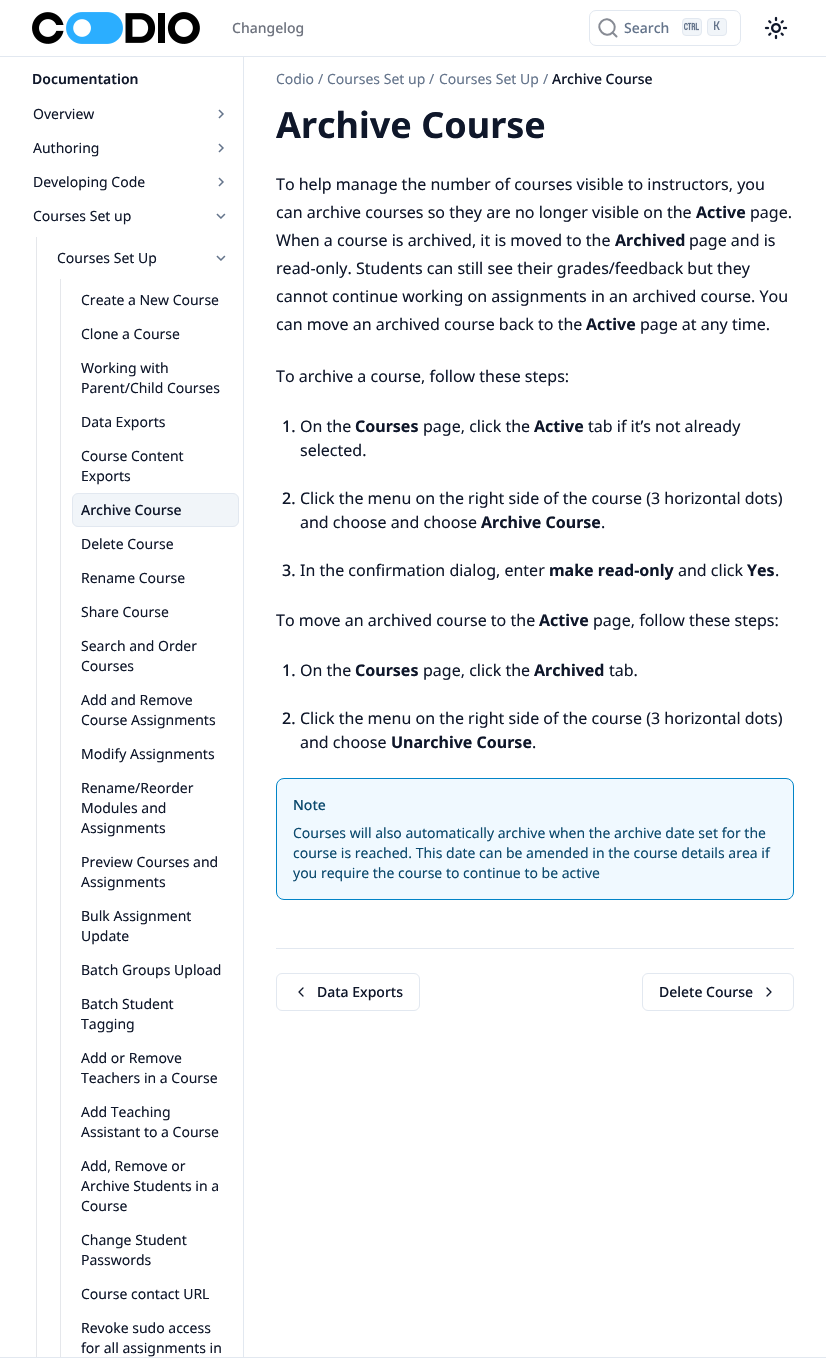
void draw(SkCanvas* c) {
SkPaint p;
p.setAntiAlias(true);
auto F=[&](const char* family, int weight, float size, bool italic = false){SkFontStyle style(weight, SkFontStyle::kNormal_Width,italic ? SkFontStyle::kItalic_Slant : SkFontStyle::kUpright_Slant);SkFont result(fontMgr->matchFamilyStyle(family, style), size);result.setSubpixel(true);return result;};
auto T=[&](const char* s, float x, float y, const SkFont& font){c->drawString(s, x, y, font, p);};
auto R=[&](float x, float y, float w, float h){c->drawRect(SkRect::MakeXYWH(x, y, w, h), p);};
auto I=[&](const char* path, float x, float y, float w, float h){auto image = SkImages::DeferredFromEncodedData(SkData::MakeFromFileName(path));c->drawImageRect(image, SkRect::MakeXYWH(x, y, w, h), SkSamplingOptions());};
auto P=[&](const char* data, bool evenOdd = false){SkPath result = *SkParsePath::FromSVGString(data);if (evenOdd) result.setFillType(SkPathFillType::kEvenOdd);return result;};
c->clear(0xffffffff);
p.setColor(0xffe2e8f0);
R(0,56,826,1);
I("1.png",32,12,168,32);
auto f1 = F("Noto Sans",500,14);
p.setColor(0xff6f747f);
T("Changelog",232,33,f1);
p.setStroke(true);
p.setStrokeWidth(1);
p.setColor(0xffe2e8f0);
c->drawRoundRect(SkRect::MakeXYWH(589.5,10.5,151,35),6.5,6.5,p);
p.setStrokeWidth(2);
p.setStrokeCap(SkPaint::kRound_Cap);
p.setStrokeJoin(SkPaint::kRound_Join);
p.setColor(0xff878b94);
c->drawPath(P("M612.5 32.5l4 4l-4-4c-7 7-18-4-11-11c7-7 18 4 11 11z"),p);
p.setStroke(false);
p.setColor(0xff64748b);
T("Search",624,33,f1);
p.setColor(0xfff1f5f9);
c->drawRoundRect(SkRect::MakeXYWH(682.5,18.5,19,17),3.5,3.5,p);
p.setStroke(true);
p.setStrokeWidth(1);
p.setStrokeCap(SkPaint::kButt_Cap);
p.setStrokeJoin(SkPaint::kMiter_Join);
p.setColor(0xffe2e8f0);
c->drawRoundRect(SkRect::MakeXYWH(682.5,18.5,19,17),3.5,3.5,p);
I("2.png",684,22,15,9);
p.setStroke(false);
p.setColor(0xfff1f5f9);
c->drawRoundRect(SkRect::MakeXYWH(707.5,18.5,19,17),3.5,3.5,p);
p.setStroke(true);
p.setColor(0xffe2e8f0);
c->drawRoundRect(SkRect::MakeXYWH(707.5,18.5,19,17),3.5,3.5,p);
auto f2 = F("JetBrains Mono",500,12);
p.setStroke(false);
p.setColor(0xff64748b);
T("K",713,30,f2);
I("3.png",764,16,24,24);
p.setColor(0xffe2e8f0);
R(243,57,1,1300);
auto f3 = F("Noto Sans",600,14);
p.setColor(0xff0f172a);
T("Documentation",32,84,f3);
auto f4 = F("Noto Sans",400,14);
T("Overview",33,119,f4);
I("4.png",218,109,6,10);
T("Authoring",33,153,f4);
I("4.png",218,143,6,10);
T("Developing Code",33,187,f4);
I("4.png",218,177,6,10);
T("Courses Set up",33,221,f4);
I("5.png",216,213,10,6);
p.setColor(0xffe5e7eb);
R(36,237,1,1120);
p.setColor(0xff0f172a);
T("Courses Set Up",57,263,f4);
I("5.png",216,255,10,6);
p.setColor(0xffe5e7eb);
R(60,279,1,1078);
p.setColor(0xff0f172a);
T("Create a New Course",81,305,f4);
T("Clone a Course",81,339,f4);
T("Working with",81,373,f4);
T("Parent/Child Courses",81,393,f4);
T("Data Exports",81,427,f4);
T("Course Content",81,461,f4);
T("Exports",81,481,f4);
p.setColor(0xfff1f5f9);
c->drawRoundRect(SkRect::MakeXYWH(72.5,493.5,166,33),5.5,5.5,p);
p.setStroke(true);
p.setColor(0xffe2e8f0);
c->drawRoundRect(SkRect::MakeXYWH(72.5,493.5,166,33),5.5,5.5,p);
p.setStroke(false);
p.setColor(0xff0f172a);
T("Archive Course",81,515,f1);
T("Delete Course",81,549,f4);
T("Rename Course",81,583,f4);
T("Share Course",81,617,f4);
T("Search and Order",81,651,f4);
T("Courses",81,671,f4);
T("Add and Remove",81,705,f4);
T("Course Assignments",81,725,f4);
T("Modify Assignments",81,759,f4);
T("Rename/Reorder",81,793,f4);
T("Modules and",81,813,f4);
T("Assignments",81,833,f4);
T("Preview Courses and",81,867,f4);
T("Assignments",81,887,f4);
T("Bulk Assignment",81,921,f4);
T("Update",81,941,f4);
T("Batch Groups Upload",81,975,f4);
T("Batch Student",81,1009,f4);
T("Tagging",81,1029,f4);
T("Add or Remove",81,1063,f4);
T("Teachers in a Course",81,1083,f4);
T("Add Teaching",81,1117,f4);
T("Assistant to a Course",81,1137,f4);
T("Add, Remove or",81,1171,f4);
T("Archive Students in a",81,1191,f4);
T("Course",81,1211,f4);
T("Change Student",81,1245,f4);
T("Passwords",81,1265,f4);
T("Course contact URL",81,1299,f4);
T("Revoke sudo access",81,1333,f4);
T("for all assignments in",81,1353,f4);
p.setColor(0xff64748b);
T("Codio",276,84,f4);
T("/",318,84,f4);
T("Courses Set up",327,84,f4);
T("/",429,84,f4);
T("Courses Set Up",439,84,f4);
T("/",543,84,f4);
p.setColor(0xff0f172a);
T("Archive Course",552,84,f1);
auto f5 = F("Noto Sans",700,36);
T("Archive Course",276,138,f5);
auto f6 = F("Noto Sans",400,16);
T("To help manage the number of courses visible to instructors, you",276,190,f6);
T("can archive courses so they are no longer visible on the",276,218,f6);
auto f7 = F("Noto Sans",700,16);
T("Active",696,218,f7);
T("page.",750,218,f6);
T("When a course is archived, it is moved to the",276,246,f6);
T("Archived",615,246,f7);
T("page and is",689,246,f6);
T("read-only. Students can still see their grades/feedback but they",276,274,f6);
T("cannot continue working on assignments in an archived course. You",276,302,f6);
T("can move an archived course back to the",276,330,f6);
T("Active",586,330,f7);
T("page at any time.",640,330,f6);
T("To archive a course, follow these steps:",276,382,f6);
auto f8 = F("Noto Sans",500,16);
T("1.",282,432,f8);
T("On the",300,432,f6);
T("Courses",355,432,f7);
T("page, click the",423,432,f6);
T("Active",534,432,f7);
T("tab if it’s not already",588,432,f6);
T("selected.",300,456,f6);
T("2.",282,504,f8);
T("Click the menu on the right side of the course (3 horizontal dots)",300,504,f6);
T("and choose and choose",300,528,f6);
T("Archive Course",481,528,f7);
T(".",601,528,f6);
T("3.",282,576,f8);
T("In the confirmation dialog, enter",300,576,f6);
T("make read-only",549,576,f7);
T("and click",678,576,f6);
T("Yes",747,576,f7);
T(".",775,576,f6);
T("To move an archived course to the",276,626,f6);
T("Active",539,626,f7);
T("page, follow these steps:",593,626,f6);
T("1.",282,676,f8);
T("On the",300,676,f6);
T("Courses",355,676,f7);
T("page, click the",423,676,f6);
T("Archived",534,676,f7);
T("tab.",609,676,f6);
T("2.",282,724,f8);
T("Click the menu on the right side of the course (3 horizontal dots)",300,724,f6);
T("and choose",300,748,f6);
T("Unarchive Course",391,748,f7);
T(".",532,748,f6);
p.setColor(0xfff0f9ff);
c->drawRoundRect(SkRect::MakeXYWH(276.5,778.5,517,121),7.5,7.5,p);
p.setStroke(true);
p.setColor(0xff0284c7);
c->drawRoundRect(SkRect::MakeXYWH(276.5,778.5,517,121),7.5,7.5,p);
p.setStroke(false);
p.setColor(0xff0c4a6e);
T("Note",293,810,f1);
T("Courses will also automatically archive when the archive date set for the",293,838,f4);
T("course is reached. This date can be amended in the course details area if",293,858,f4);
T("you require the course to continue to be active",293,878,f4);
p.setColor(0xffe2e8f0);
R(276,948,518,1);
p.setStroke(true);
c->drawRoundRect(SkRect::MakeXYWH(276.5,973.5,143,37),5.5,5.5,p);
p.setStrokeWidth(1.3);
p.setStrokeCap(SkPaint::kRound_Cap);
p.setStrokeJoin(SkPaint::kRound_Join);
p.setColor(0xff0f172a);
c->drawPath(P("M303 996l-4-4l4-4"),p);
p.setStroke(false);
T("Data Exports",317,997,f1);
p.setStroke(true);
p.setStrokeWidth(1);
p.setStrokeCap(SkPaint::kButt_Cap);
p.setStrokeJoin(SkPaint::kMiter_Join);
p.setColor(0xffe2e8f0);
c->drawRoundRect(SkRect::MakeXYWH(642.5,973.5,151,37),5.5,5.5,p);
p.setStroke(false);
p.setColor(0xff0f172a);
T("Delete Course",659,997,f1);
p.setStroke(true);
p.setStrokeWidth(1.3);
p.setStrokeCap(SkPaint::kRound_Cap);
p.setStrokeJoin(SkPaint::kRound_Join);
c->drawPath(P("M767 996l4-4l-4-4"),p);
p.setStroke(false);
p.setColor(0xffe2e8f0);
R(0,1357,826,1);
}
